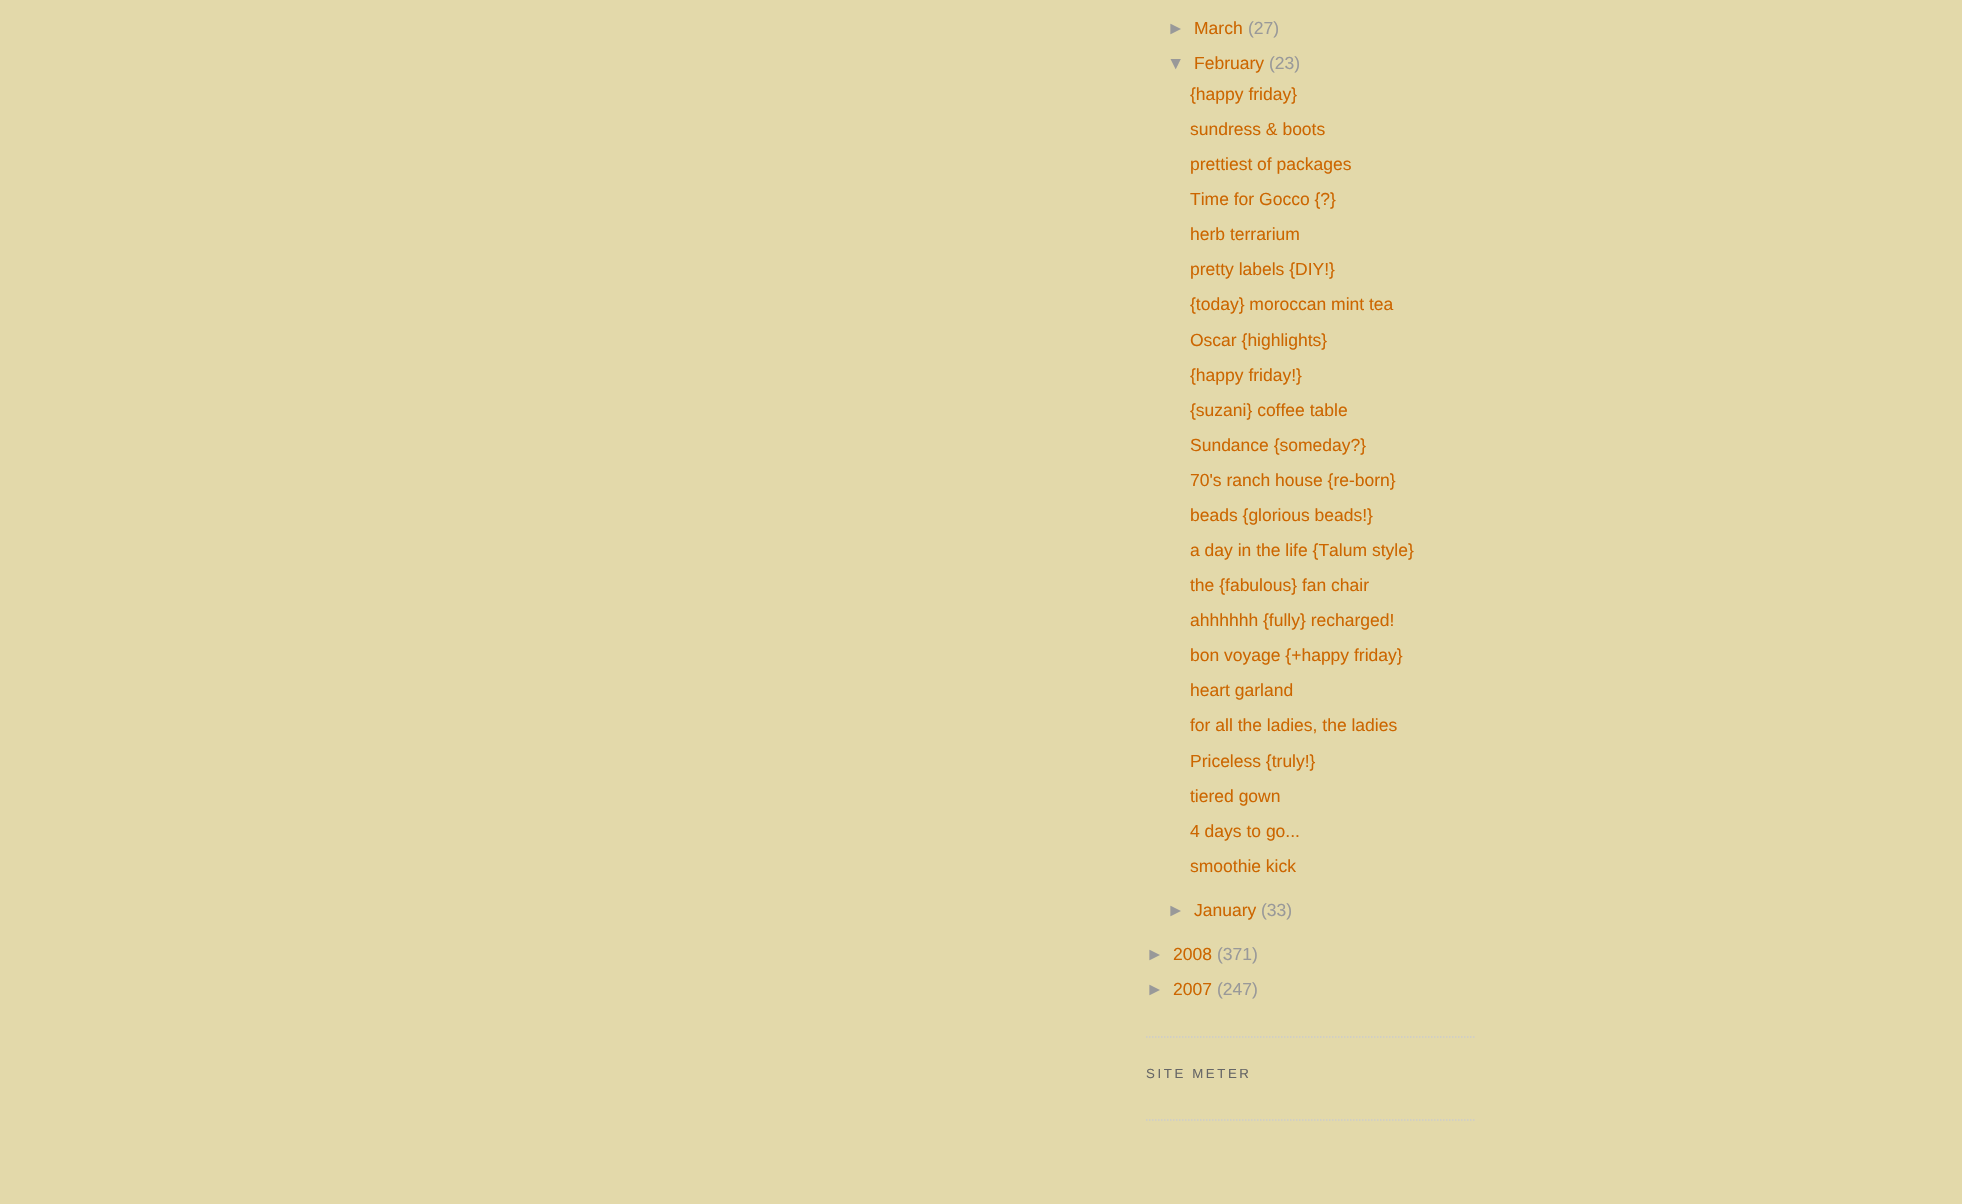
void draw(SkCanvas* c) {
SkPaint p;
p.setAntiAlias(true);
auto F=[&](const char* family, int weight, float size, bool italic = false){SkFontStyle style(weight, SkFontStyle::kNormal_Width,italic ? SkFontStyle::kItalic_Slant : SkFontStyle::kUpright_Slant);SkFont result(fontMgr->matchFamilyStyle(family, style), size);result.setSubpixel(true);return result;};
auto T=[&](const char* s, float x, float y, const SkFont& font){c->drawString(s, x, y, font, p);};
auto L=[&](const char* s, float x, float y, const SkFont& font, const SkPaint& ink, float letter, float word){std::vector<SkGlyphID> glyphs(font.countText(s, strlen(s), SkTextEncoding::kUTF8));std::vector<float> xs(glyphs.size());font.textToGlyphs(s, strlen(s), SkTextEncoding::kUTF8, glyphs);font.getXPos(glyphs, xs, x);float extra = 0;for (size_t i = 0; i < glyphs.size(); i++) {xs[i] += extra;extra += letter + word * (glyphs[i] == font.unicharToGlyph(' '));}c->drawTextBlob(SkTextBlob::MakeFromPosHGlyphs(glyphs, xs, y, font), 0, 0, ink);};
auto P=[&](const char* data, bool evenOdd = false){SkPath result = *SkParsePath::FromSVGString(data);if (evenOdd) result.setFillType(SkPathFillType::kEvenOdd);return result;};
c->clear(0xffe3d9aa);
p.setStroke(true);
p.setStrokeWidth(1.5);
p.setColor(0xffcccccc);
p.setPathEffect(SkDashPathEffect::Make({{1.5f,1.5f}}, 0));
c->drawPath(P("M1146 1037h330"),p);
p.setPathEffect(nullptr);
auto f1 = F("Liberation Sans",400,17.5);
p.setStroke(false);
p.setColor(0xff999999);
T("►",1167,34,f1);
p.setColor(0xffcc6600);
T("March",1194,34,f1);
p.setColor(0xff999999);
T("(27)",1248,34,f1);
T("▼",1167,69,f1);
p.setColor(0xffcc6600);
T("February",1194,69,f1);
p.setColor(0xff999999);
T("(23)",1269,69,f1);
p.setColor(0xffcc6600);
T("{happy friday}",1190,100,f1);
T("sundress & boots",1190,135,f1);
T("prettiest of packages",1190,170,f1);
T("Time for Gocco {?}",1190,205,f1);
T("herb terrarium",1190,240,f1);
T("pretty labels {DIY!}",1190,275,f1);
T("{today} moroccan mint tea",1190,310,f1);
T("Oscar {highlights}",1190,346,f1);
T("{happy friday!}",1190,381,f1);
T("{suzani} coffee table",1190,416,f1);
T("Sundance {someday?}",1190,451,f1);
T("70's ranch house {re-born}",1190,486,f1);
T("beads {glorious beads!}",1190,521,f1);
T("a day in the life {Talum style}",1190,556,f1);
T("the {fabulous} fan chair",1190,591,f1);
T("ahhhhhh {fully} recharged!",1190,626,f1);
T("bon voyage {+happy friday}",1190,661,f1);
T("heart garland",1190,696,f1);
T("for all the ladies, the ladies",1190,731,f1);
T("Priceless {truly!}",1190,767,f1);
T("tiered gown",1190,802,f1);
T("4 days to go...",1190,837,f1);
T("smoothie kick",1190,872,f1);
p.setColor(0xff999999);
T("►",1167,916,f1);
p.setColor(0xffcc6600);
T("January",1194,916,f1);
p.setColor(0xff999999);
T("(33)",1261,916,f1);
T("►",1146,960,f1);
p.setColor(0xffcc6600);
T("2008",1173,960,f1);
p.setColor(0xff999999);
T("(371)",1217,960,f1);
T("►",1146,995,f1);
p.setColor(0xffcc6600);
T("2007",1173,995,f1);
p.setColor(0xff999999);
T("(247)",1217,995,f1);
p.setStroke(true);
p.setColor(0xffcccccc);
p.setPathEffect(SkDashPathEffect::Make({{1.5f,1.5f}}, 0));
c->drawPath(P("M1146 1120h330"),p);
p.setPathEffect(nullptr);
auto f2 = F("Liberation Sans",400,13.25);
p.setStroke(false);
p.setColor(0xff666666);
L("SITE METER",1146,1078,f2,p,2.6,0);
}
